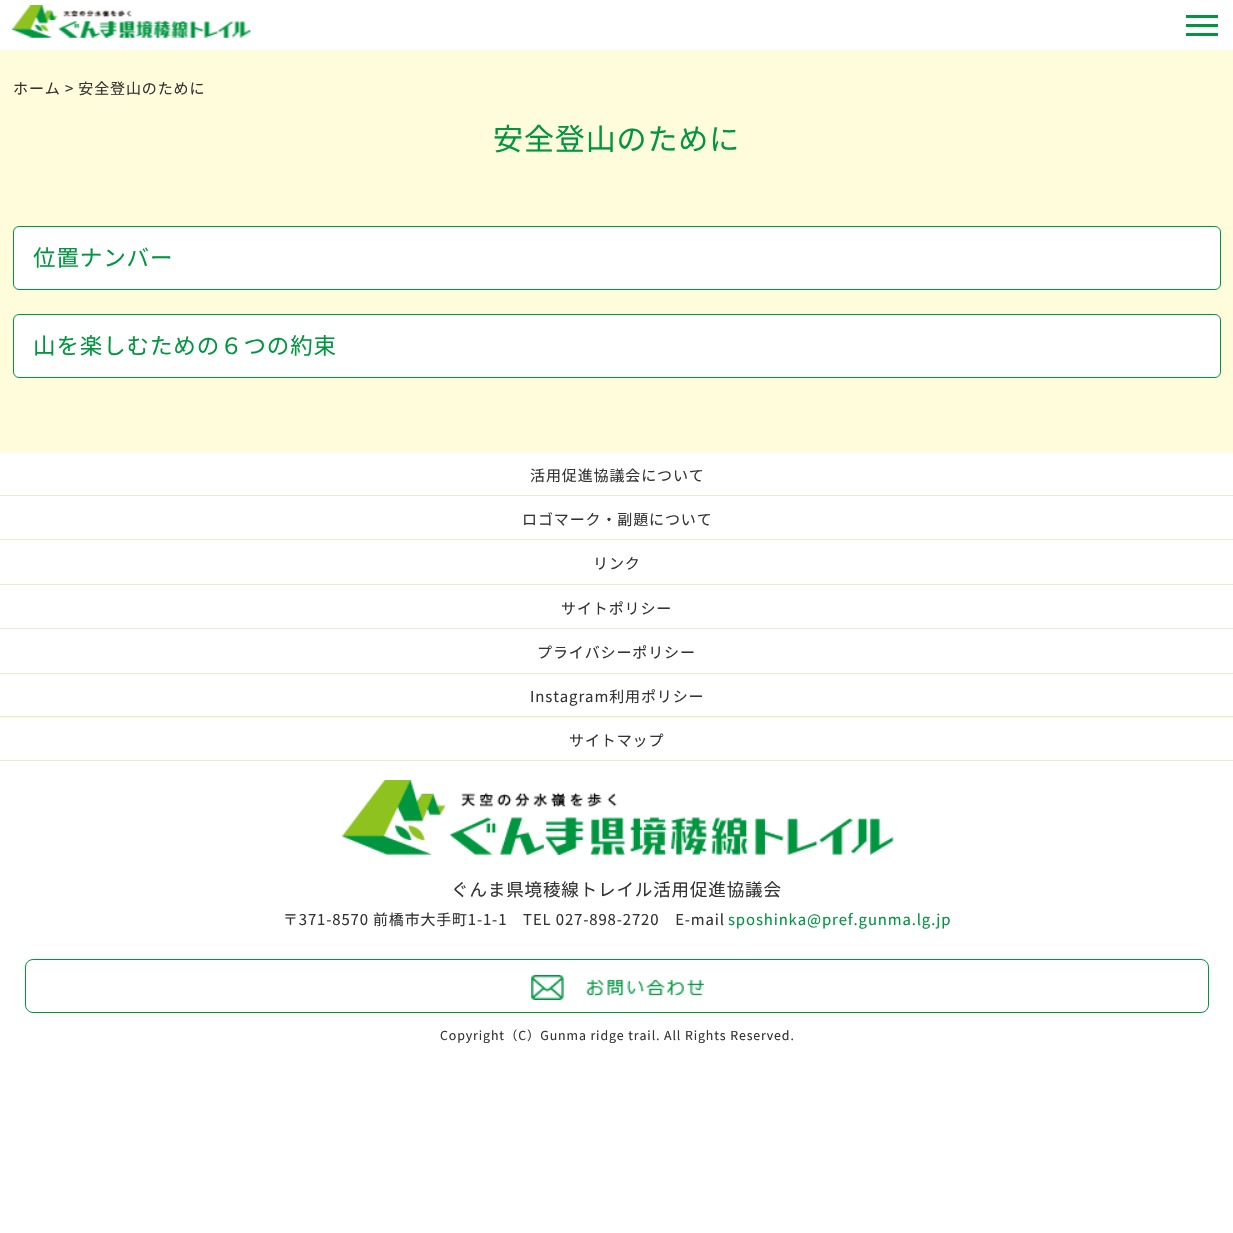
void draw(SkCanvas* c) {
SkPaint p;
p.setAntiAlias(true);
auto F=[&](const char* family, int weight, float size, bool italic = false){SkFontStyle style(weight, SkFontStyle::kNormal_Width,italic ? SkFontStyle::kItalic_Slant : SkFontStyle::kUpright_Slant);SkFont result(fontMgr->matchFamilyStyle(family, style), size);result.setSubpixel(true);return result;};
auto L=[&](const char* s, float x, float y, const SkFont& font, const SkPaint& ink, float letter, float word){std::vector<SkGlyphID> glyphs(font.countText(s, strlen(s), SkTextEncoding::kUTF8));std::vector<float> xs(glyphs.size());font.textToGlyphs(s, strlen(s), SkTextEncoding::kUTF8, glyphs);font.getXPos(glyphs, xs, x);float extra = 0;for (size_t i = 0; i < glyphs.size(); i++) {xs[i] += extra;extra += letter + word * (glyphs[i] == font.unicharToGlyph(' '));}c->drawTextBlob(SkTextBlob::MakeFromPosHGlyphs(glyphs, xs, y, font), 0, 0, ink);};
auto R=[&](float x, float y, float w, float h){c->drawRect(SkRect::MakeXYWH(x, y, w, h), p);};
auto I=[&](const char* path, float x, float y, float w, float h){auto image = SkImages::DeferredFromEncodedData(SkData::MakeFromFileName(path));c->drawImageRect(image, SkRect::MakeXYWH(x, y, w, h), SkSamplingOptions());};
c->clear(0xffffffff);
p.setColor(0xff009640);
R(1186,24,32,3);
R(1186,15,32,3);
R(1186,33,32,3);
I("1.png",12,5,239,33);
I("2.png",12,27,239,11);
p.setColor(0xfffffcdb);
R(0,50,1233,403);
auto f1 = F("Noto Sans JP",100,15);
p.setColor(0xff333333);
L("ホーム > 安全登山のために",13,94,f1,p,.88,0);
auto f2 = F("Noto Sans JP",100,30);
p.setColor(0xff009640);
L("安全登山のために",493,150,f2,p,.88,0);
p.setColor(0xffffffff);
c->drawRoundRect(SkRect::MakeXYWH(13.5,226.5,1207,63),5.5,5.5,p);
p.setStroke(true);
p.setStrokeWidth(1);
p.setColor(0xff009640);
c->drawRoundRect(SkRect::MakeXYWH(13.5,226.5,1207,63),5.5,5.5,p);
auto f3 = F("Noto Sans JP",100,22.5);
p.setStroke(false);
L("位置ナンバー",33,266,f3,p,.88,0);
p.setColor(0xffffffff);
c->drawRoundRect(SkRect::MakeXYWH(13.5,314.5,1207,63),5.5,5.5,p);
p.setStroke(true);
p.setColor(0xff009640);
c->drawRoundRect(SkRect::MakeXYWH(13.5,314.5,1207,63),5.5,5.5,p);
p.setStroke(false);
L("山を楽しむための６つの約束",33,354,f3,p,.88,0);
p.setColor(0xfffffcdb);
R(0,717,1233,1);
p.setColor(0xffedebcd);
R(0,495,1233,1);
p.setColor(0xff333333);
L("活用促進協議会について",530,481,f1,p,.88,0);
p.setColor(0xffedebcd);
R(0,539,1233,1);
p.setColor(0xff333333);
L("ロゴマーク・副題について",522,525,f1,p,.88,0);
p.setColor(0xffedebcd);
R(0,584,1233,1);
p.setColor(0xff333333);
L("リンク",593,569,f1,p,.88,0);
p.setColor(0xffedebcd);
R(0,628,1233,1);
p.setColor(0xff333333);
L("サイトポリシー",561,614,f1,p,.88,0);
p.setColor(0xffedebcd);
R(0,673,1233,1);
p.setColor(0xff333333);
L("プライバシーポリシー",537,658,f1,p,.88,0);
p.setColor(0xffedebcd);
R(0,716,1233,1);
p.setColor(0xff333333);
L("Instagram利用ポリシー",530,702,f1,p,.88,0);
p.setColor(0xffedebcd);
R(0,760,1233,1);
p.setColor(0xff333333);
L("サイトマップ",569,746,f1,p,.88,0);
I("3.png",341,780,553,75);
auto f4 = F("Noto Sans JP",100,17.5);
L("ぐんま県境稜線トレイル活用促進協議会",451,896,f4,p,.88,0);
auto f5 = F("Noto Sans JP",100,14.9);
L("〒371-8570 前橋市大手町1-1-1　TEL 027-898-2720　E-mail",283,925,f5,p,.88,0);
p.setColor(0xff009640);
L("sposhinka@pref.gunma.lg.jp",728,925,f5,p,.88,0);
p.setStroke(true);
c->drawRoundRect(SkRect::MakeXYWH(25.5,959.5,1183,53),7.5,7.5,p);
I("4.png",531,975,173,25);
auto f6 = F("Noto Sans JP",100,12.4);
p.setStroke(false);
p.setColor(0xff333333);
L("Copyright（C）Gunma ridge trail. All Rights Reserved.",440,1040,f6,p,.88,0);
}
